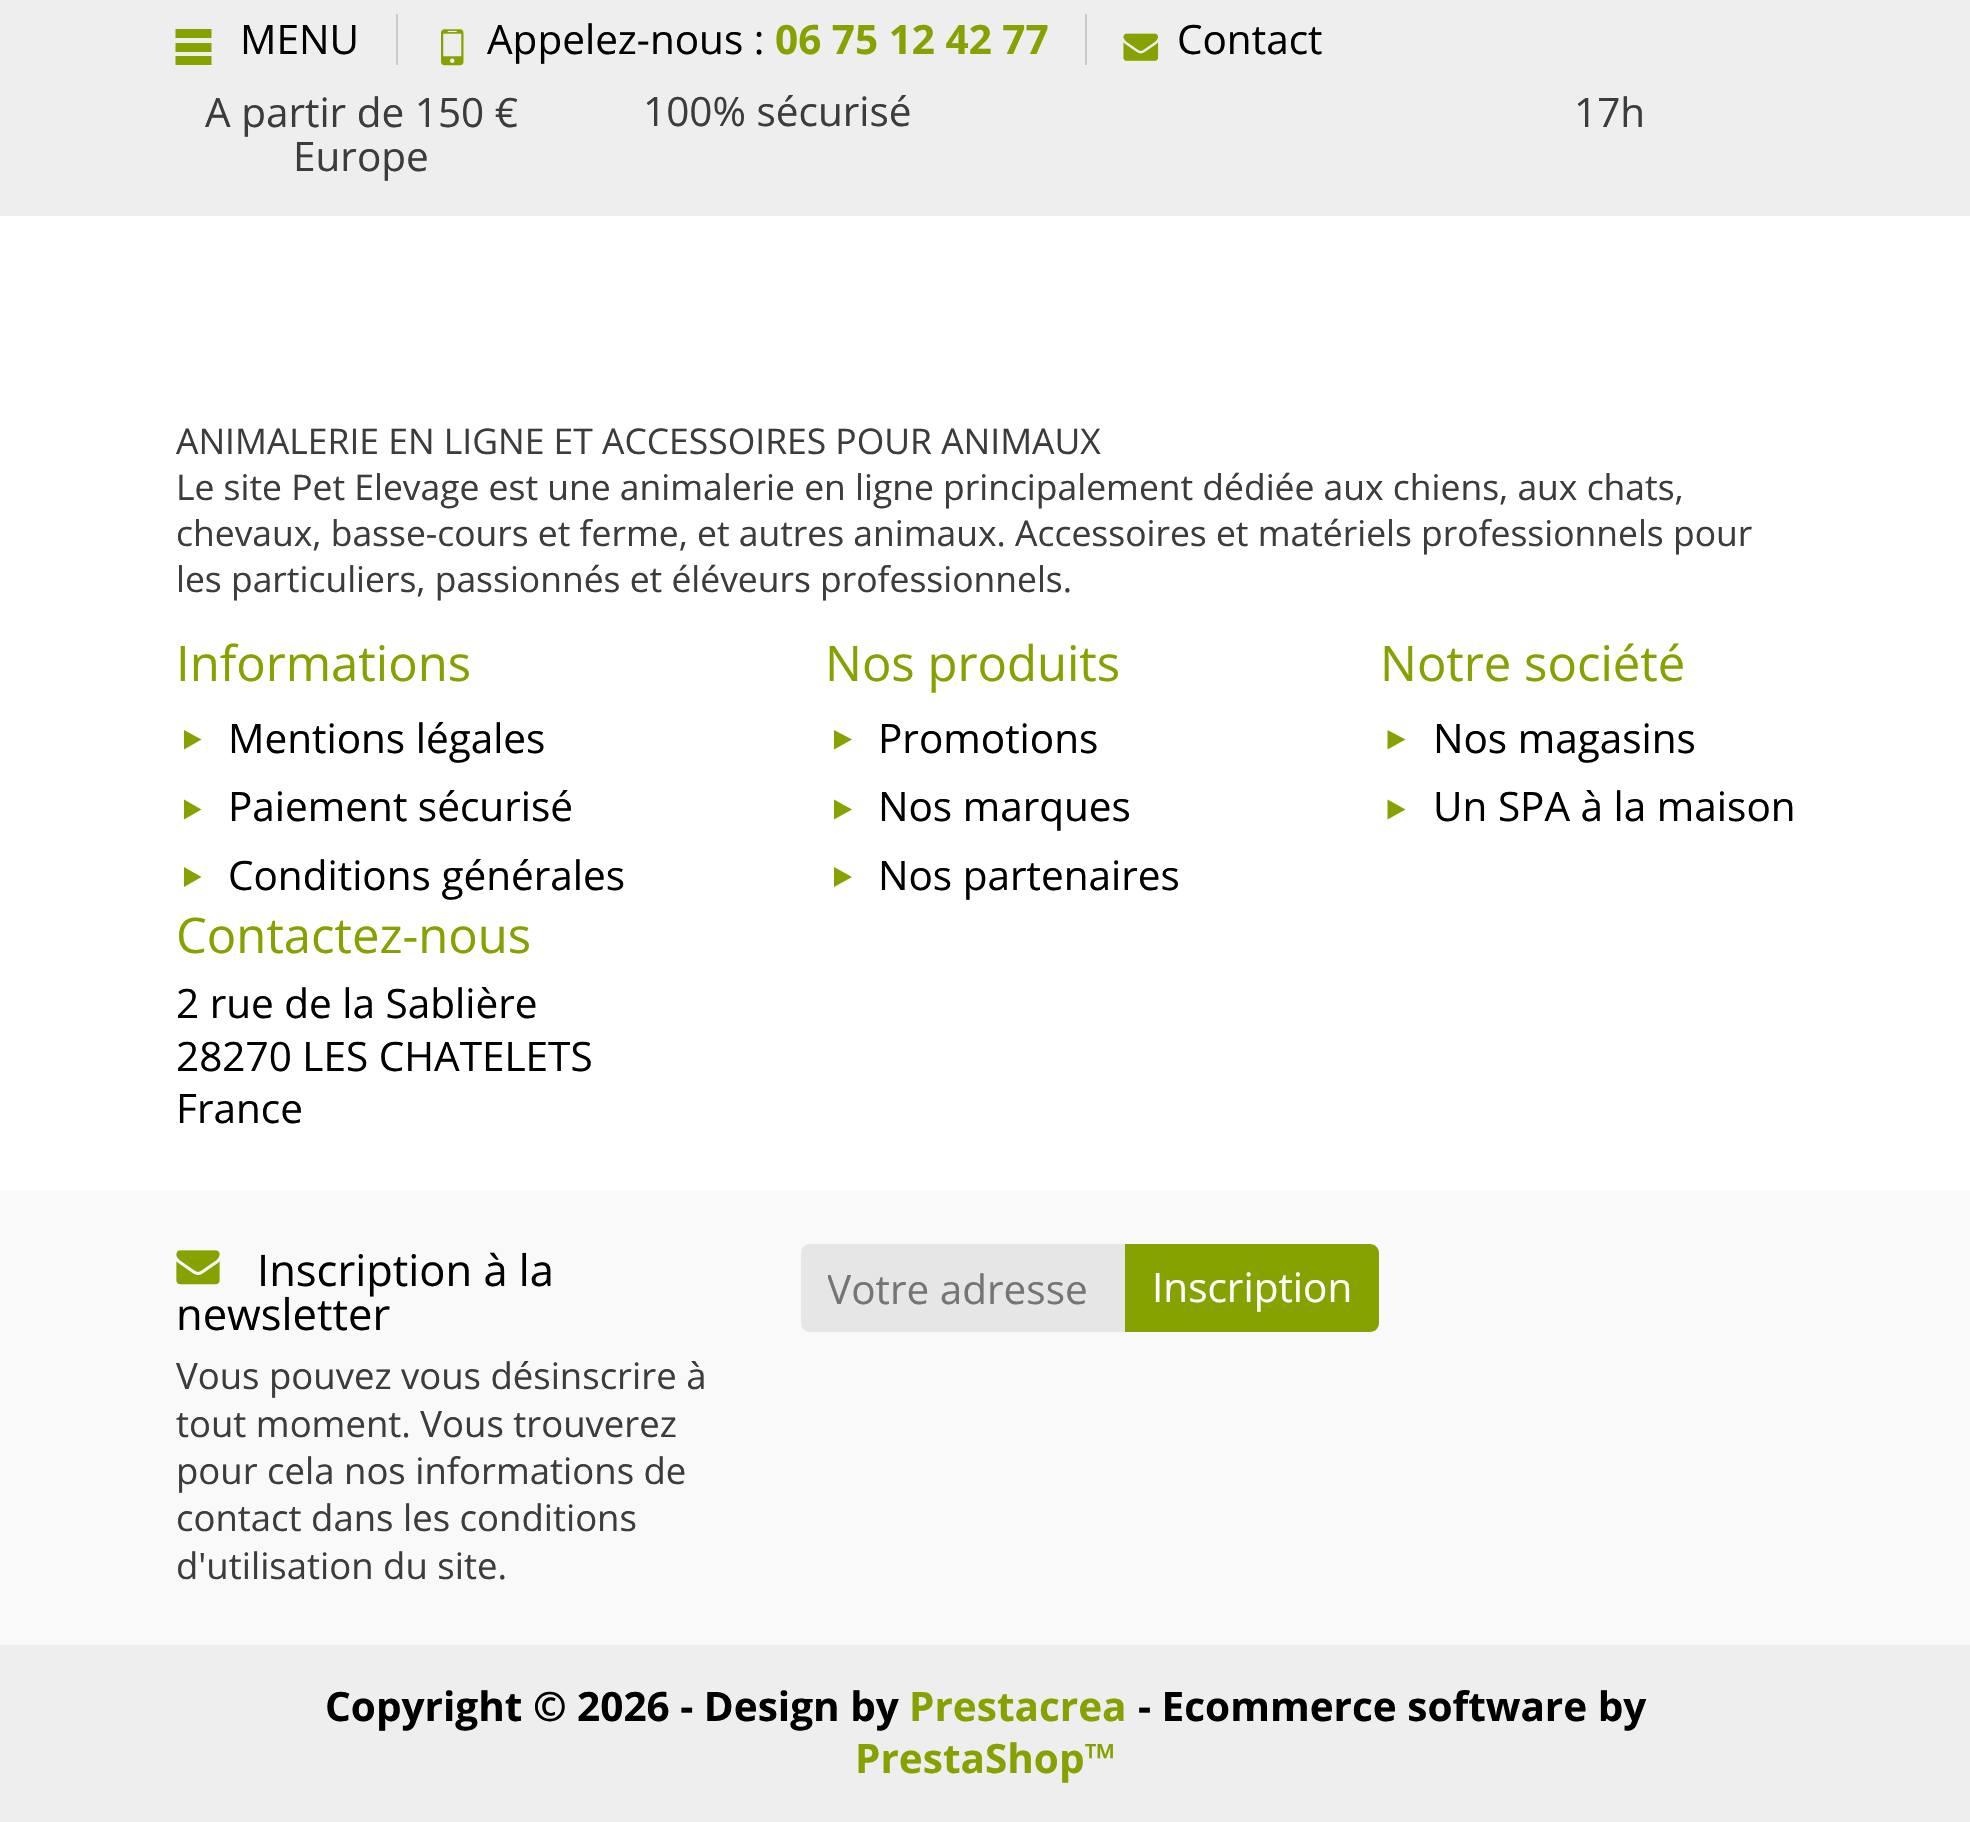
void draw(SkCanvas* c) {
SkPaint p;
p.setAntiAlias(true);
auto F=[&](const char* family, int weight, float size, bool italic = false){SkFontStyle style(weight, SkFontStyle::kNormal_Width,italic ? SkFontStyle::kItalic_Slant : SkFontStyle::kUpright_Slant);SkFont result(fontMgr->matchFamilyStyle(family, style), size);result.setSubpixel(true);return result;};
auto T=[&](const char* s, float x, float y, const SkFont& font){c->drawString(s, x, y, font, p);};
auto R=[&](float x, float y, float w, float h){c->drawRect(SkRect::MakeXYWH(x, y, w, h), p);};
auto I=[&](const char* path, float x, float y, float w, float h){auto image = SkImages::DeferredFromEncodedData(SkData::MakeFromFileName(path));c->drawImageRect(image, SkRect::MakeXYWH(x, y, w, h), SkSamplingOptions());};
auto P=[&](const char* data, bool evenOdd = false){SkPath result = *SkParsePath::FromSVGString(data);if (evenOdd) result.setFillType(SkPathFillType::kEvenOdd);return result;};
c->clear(0xfff9f9f9);
p.setColor(0xffeeeeee);
R(0,0,1970,216);
p.setColor(0xffcacaca);
R(396,14,2,51);
p.setColor(0xff85a201);
c->drawPath(P("M175.5 29v9h36v-9zm0 23h36v-9h-36zm0 13h36v-9h-36z"),p);
auto f1 = F("Open Sans",400,40.5);
p.setColor(0xff000000);
T("MENU",240,54,f1);
p.setColor(0xffcacaca);
R(1085,14,2,51);
I("1.png",441,29,23,37);
p.setColor(0xff000000);
T("Appelez-nous :",487,54,f1);
auto f2 = F("Open Sans",700,40.5);
p.setColor(0xff85a201);
T("06 75 12 42 77",775,54,f2);
I("2.png",1123,33,36,28);
p.setColor(0xff000000);
T("Contact",1177,54,f1);
p.setColor(0xff3c3c3c);
T("A partir de 150 €",205,127,f1);
T("Europe",293,171,f1);
T("100% sécurisé",643,126,f1);
T("17h",1574,127,f1);
p.setColor(0xffffffff);
R(0,216,1970,974);
auto f3 = F("Open Sans",400,35.45);
p.setColor(0xff3c3c3c);
T("ANIMALERIE EN LIGNE ET ACCESSOIRES POUR ANIMAUX",176,454,f3);
T("Le site Pet Elevage est une animalerie en ligne principalement dédiée aux chiens, aux chats,",176,500,f3);
T("chevaux, basse-cours et ferme, et autres animaux. Accessoires et matériels professionnels pour",176,546,f3);
T("les particuliers, passionnés et éléveurs professionnels.",176,592,f3);
auto f4 = F("Open Sans",400,49);
p.setColor(0xff85a201);
T("Informations",176,681,f4);
c->drawPath(P("M201.5 739.5l-17.5 10v-19.5z"),p);
p.setColor(0xff000000);
T("Mentions légales",228,753,f1);
p.setColor(0xff85a201);
c->drawPath(P("M201.5 809.5l-17.5 10v-20z"),p);
p.setColor(0xff000000);
T("Paiement sécurisé",228,821,f1);
p.setColor(0xff85a201);
c->drawPath(P("M201.5 877l-17.5 10v-20z"),p);
p.setColor(0xff000000);
T("Conditions générales",228,890,f1);
p.setColor(0xff85a201);
T("Nos produits",825,681,f4);
c->drawPath(P("M852 739.5l-18 10v-19.5z"),p);
p.setColor(0xff000000);
T("Promotions",878,753,f1);
p.setColor(0xff85a201);
c->drawPath(P("M852 809.5l-18 10v-20z"),p);
p.setColor(0xff000000);
T("Nos marques",878,821,f1);
p.setColor(0xff85a201);
c->drawPath(P("M852 877l-18 10v-20z"),p);
p.setColor(0xff000000);
T("Nos partenaires",878,890,f1);
p.setColor(0xff85a201);
T("Notre société",1380,681,f4);
c->drawPath(P("M1405.5 739.5l-18 10v-19.5z"),p);
p.setColor(0xff000000);
T("Nos magasins",1433,753,f1);
p.setColor(0xff85a201);
c->drawPath(P("M1405.5 809.5l-18 10v-20z"),p);
p.setColor(0xff000000);
T("Un SPA à la maison",1433,821,f1);
p.setColor(0xff85a201);
T("Contactez-nous",176,953,f4);
p.setColor(0xff000000);
T("2 rue de la Sablière",176,1018,f1);
T("28270 LES CHATELETS",176,1071,f1);
T("France",176,1123,f1);
I("3.png",176,1250,44,35);
auto f5 = F("Open Sans",400,43.5);
T("Inscription à la",257,1286,f5);
T("newsletter",176,1330,f5);
auto f6 = F("Open Sans",400,36.5);
p.setColor(0xff3c3c3c);
T("Vous pouvez vous désinscrire à",176,1389,f6);
T("tout moment. Vous trouverez",176,1437,f6);
T("pour cela nos informations de",176,1484,f6);
T("contact dans les conditions",176,1531,f6);
T("d'utilisation du site.",176,1579,f6);
p.setColor(0xffe6e6e6);
c->drawPath(P("M810 1244h315v88h-315c-5 0-9-4-9-9v-70c0-5 4-9 9-9z"),p);
c->save();
c->clipRect(SkRect::MakeXYWH(828,1260,270,54));
p.setColor(0xff757575);
T("Votre adresse",827,1304,f1);
c->restore();
p.setColor(0xff85a201);
c->drawPath(P("M1125 1244h245c5 0 9 4 9 9v70c0 5-4 9-9 9h-245z"),p);
p.setColor(0xffffffff);
T("Inscription",1152,1302,f1);
p.setColor(0xffeeeeee);
R(0,1645,1970,177);
p.setColor(0xff000000);
T("Copyright © 2026 - Design by",325,1721,f2);
p.setColor(0xff85a201);
T("Prestacrea",909,1721,f2);
p.setColor(0xff000000);
T("- Ecommerce software by",1138,1721,f2);
p.setColor(0xff85a201);
T("PrestaShop™",855,1773,f2);
}
